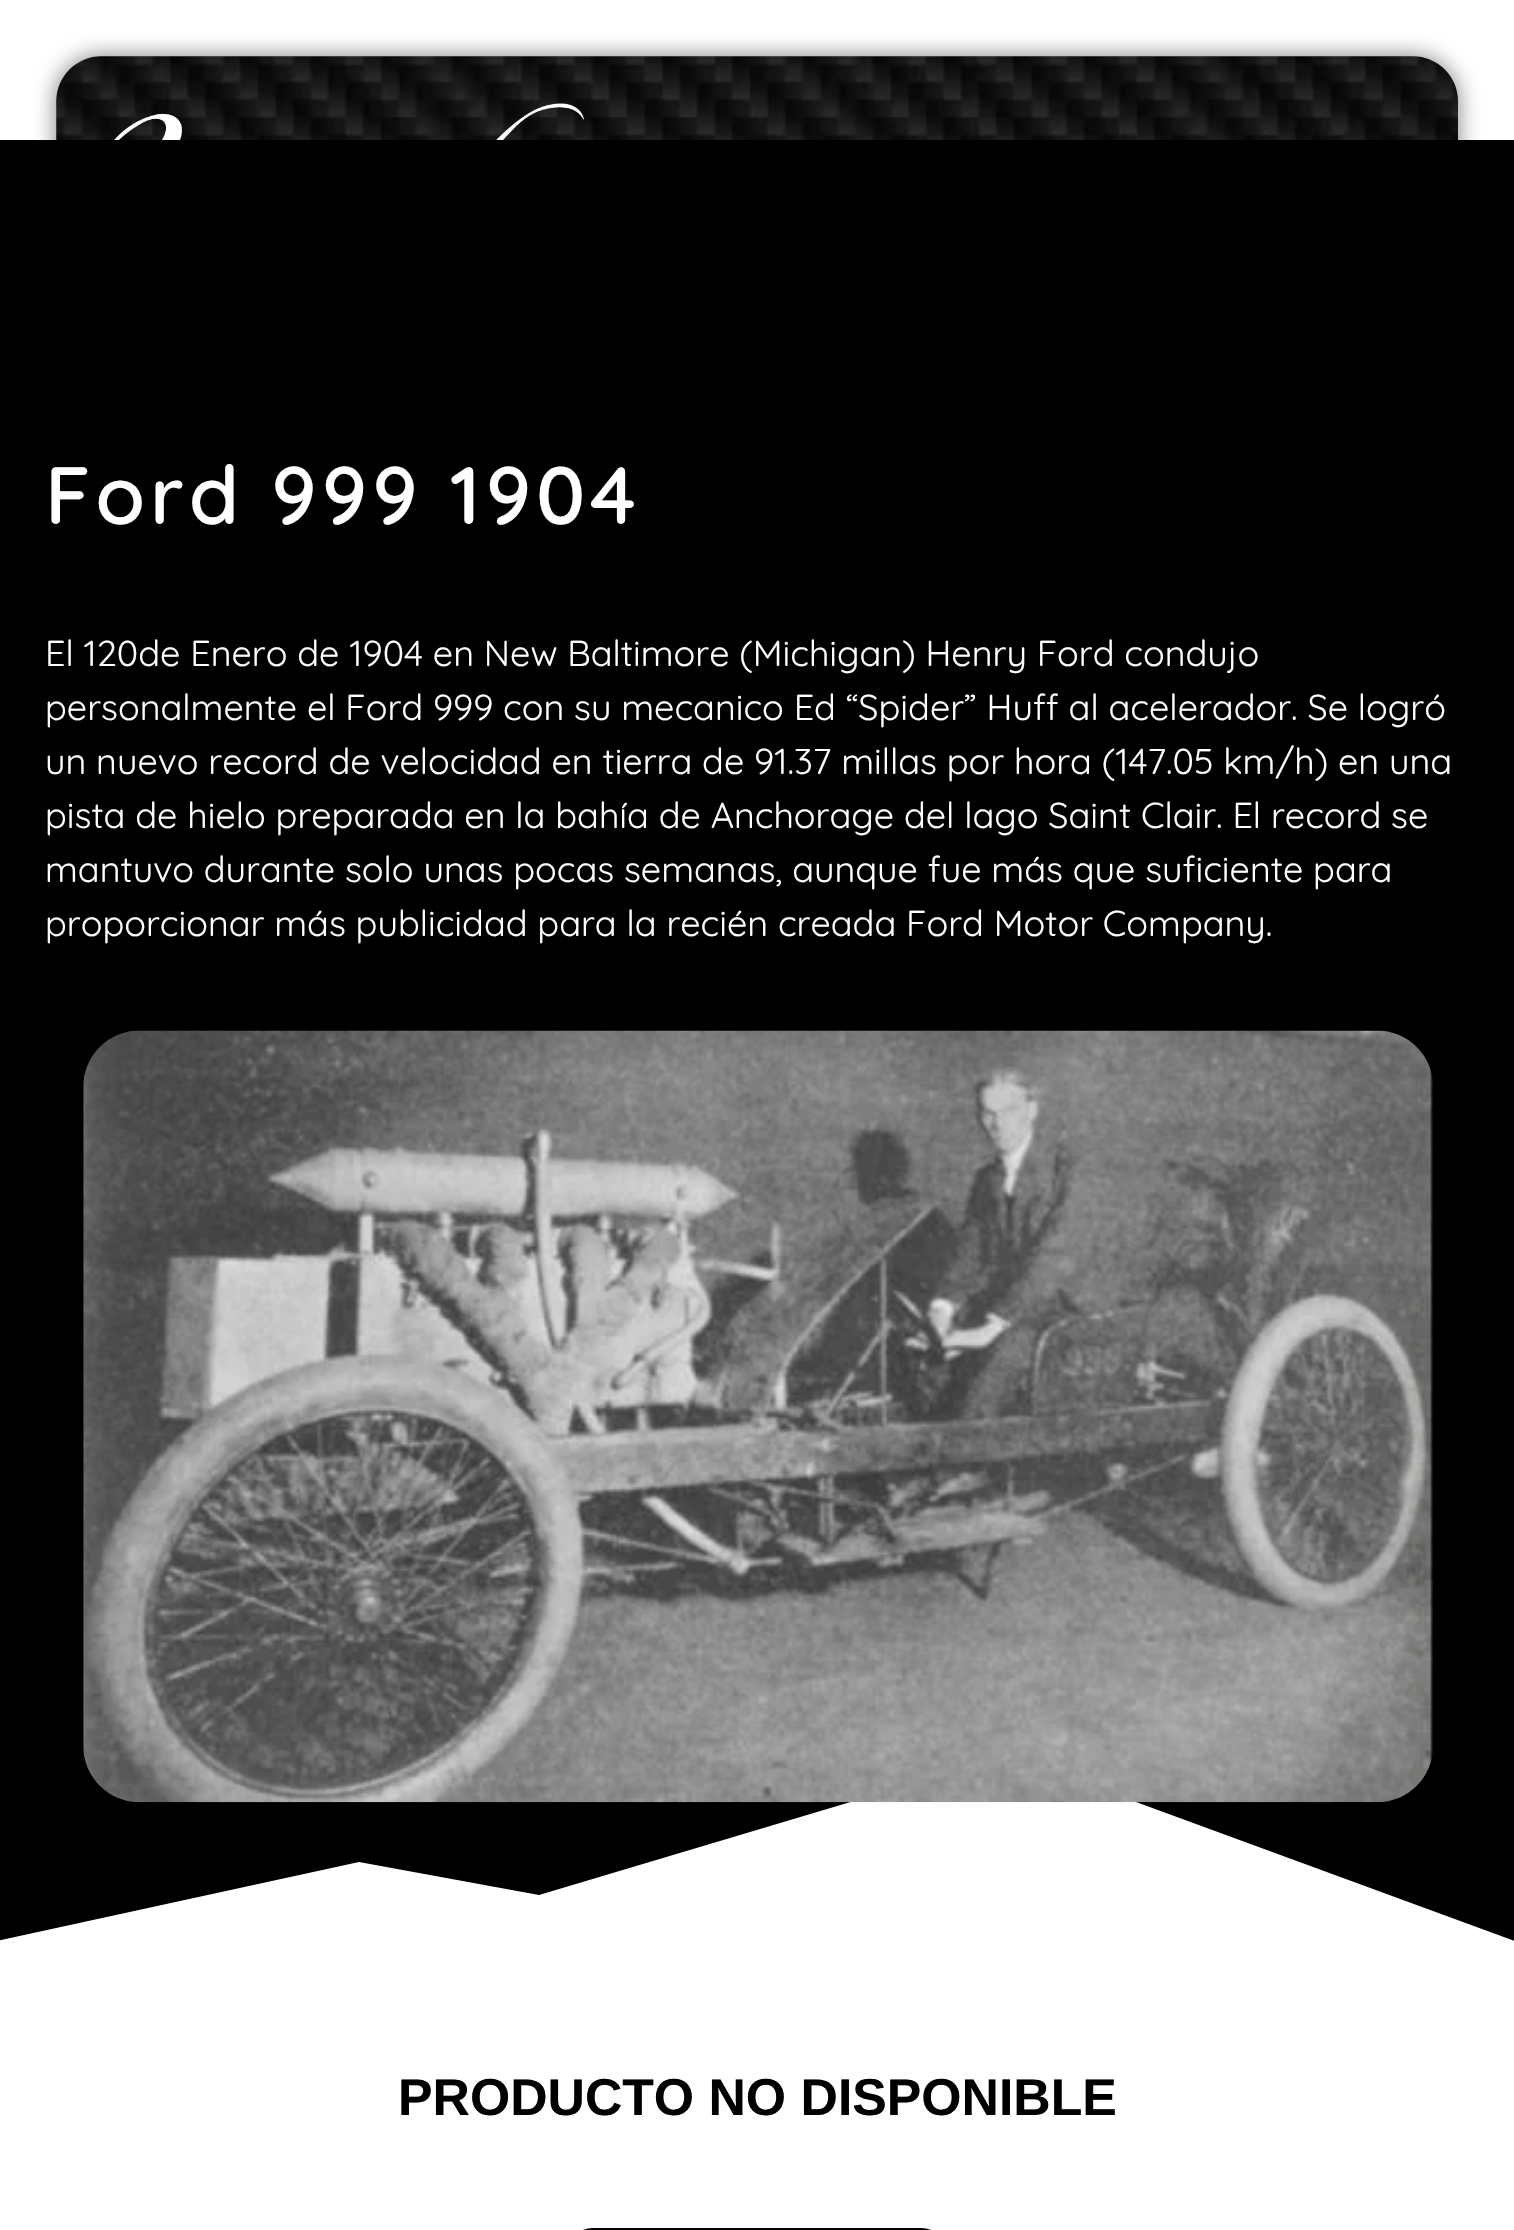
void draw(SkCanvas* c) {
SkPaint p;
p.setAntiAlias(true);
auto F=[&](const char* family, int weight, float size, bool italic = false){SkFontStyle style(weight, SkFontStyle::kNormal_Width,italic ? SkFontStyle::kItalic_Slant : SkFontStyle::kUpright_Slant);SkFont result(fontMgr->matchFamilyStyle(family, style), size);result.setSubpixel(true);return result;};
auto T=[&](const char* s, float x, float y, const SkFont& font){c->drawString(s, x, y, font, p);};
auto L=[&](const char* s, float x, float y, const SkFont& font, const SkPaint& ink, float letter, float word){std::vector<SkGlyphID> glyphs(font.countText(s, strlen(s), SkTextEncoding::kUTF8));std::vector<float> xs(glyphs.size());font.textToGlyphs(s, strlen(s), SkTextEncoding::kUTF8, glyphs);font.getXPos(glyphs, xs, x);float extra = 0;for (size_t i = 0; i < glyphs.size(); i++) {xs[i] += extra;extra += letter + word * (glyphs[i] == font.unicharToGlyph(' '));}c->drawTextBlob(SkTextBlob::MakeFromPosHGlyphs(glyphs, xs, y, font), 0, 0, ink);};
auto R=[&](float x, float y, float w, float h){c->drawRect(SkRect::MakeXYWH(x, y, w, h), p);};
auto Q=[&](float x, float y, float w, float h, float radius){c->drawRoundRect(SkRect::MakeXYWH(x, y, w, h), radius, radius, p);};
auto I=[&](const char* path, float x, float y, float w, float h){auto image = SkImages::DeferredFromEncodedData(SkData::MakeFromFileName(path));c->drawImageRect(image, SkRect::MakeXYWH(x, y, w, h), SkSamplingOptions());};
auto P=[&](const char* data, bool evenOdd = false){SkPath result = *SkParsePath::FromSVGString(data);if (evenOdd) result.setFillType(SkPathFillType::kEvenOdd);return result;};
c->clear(0xffffffff);
p.setColor(0x80000000);
p.setMaskFilter(SkMaskFilter::MakeBlur(kNormal_SkBlurStyle, 11));
c->drawRoundRect(SkRect::MakeXYWH(56,56,1402,347),45,45,p);
p.setMaskFilter(nullptr);
I("1.png",56,56,1402,84);
I("2.png",114,103,471,37);
p.setColor(0xff000000);
R(0,140,1514,1801);
auto f1 = F("Quicksand",600,81);
p.setColor(0xffffffff);
L("Ford 999 1904",45,524,f1,p,4.75,0);
auto f2 = F("Quicksand",400,36);
T("El 120de Enero de 1904 en New Baltimore (Michigan) Henry Ford condujo",45,666,f2);
T("personalmente el Ford 999 con su mecanico Ed “Spider” Huff al acelerador. Se logró",45,720,f2);
T("un nuevo record de velocidad en tierra de 91.37 millas por hora (147.05 km/h) en una",45,774,f2);
T("pista de hielo preparada en la bahía de Anchorage del lago Saint Clair. El record se",45,828,f2);
T("mantuvo durante solo unas pocas semanas, aunque fue más que suficiente para",45,882,f2);
T("proporcionar más publicidad para la recién creada Ford Motor Company.",45,936,f2);
c->drawPath(P("M359 1862l180 33l469-140l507 186v8h-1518v-8"),p);
I("3.png",83,1030,1350,773);
auto f3 = F("Liberation Sans",700,51.75);
p.setColor(0xff000000);
T("PRODUCTO NO DISPONIBLE",398,2115,f3);
Q(569,2228,376,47,45);
}
